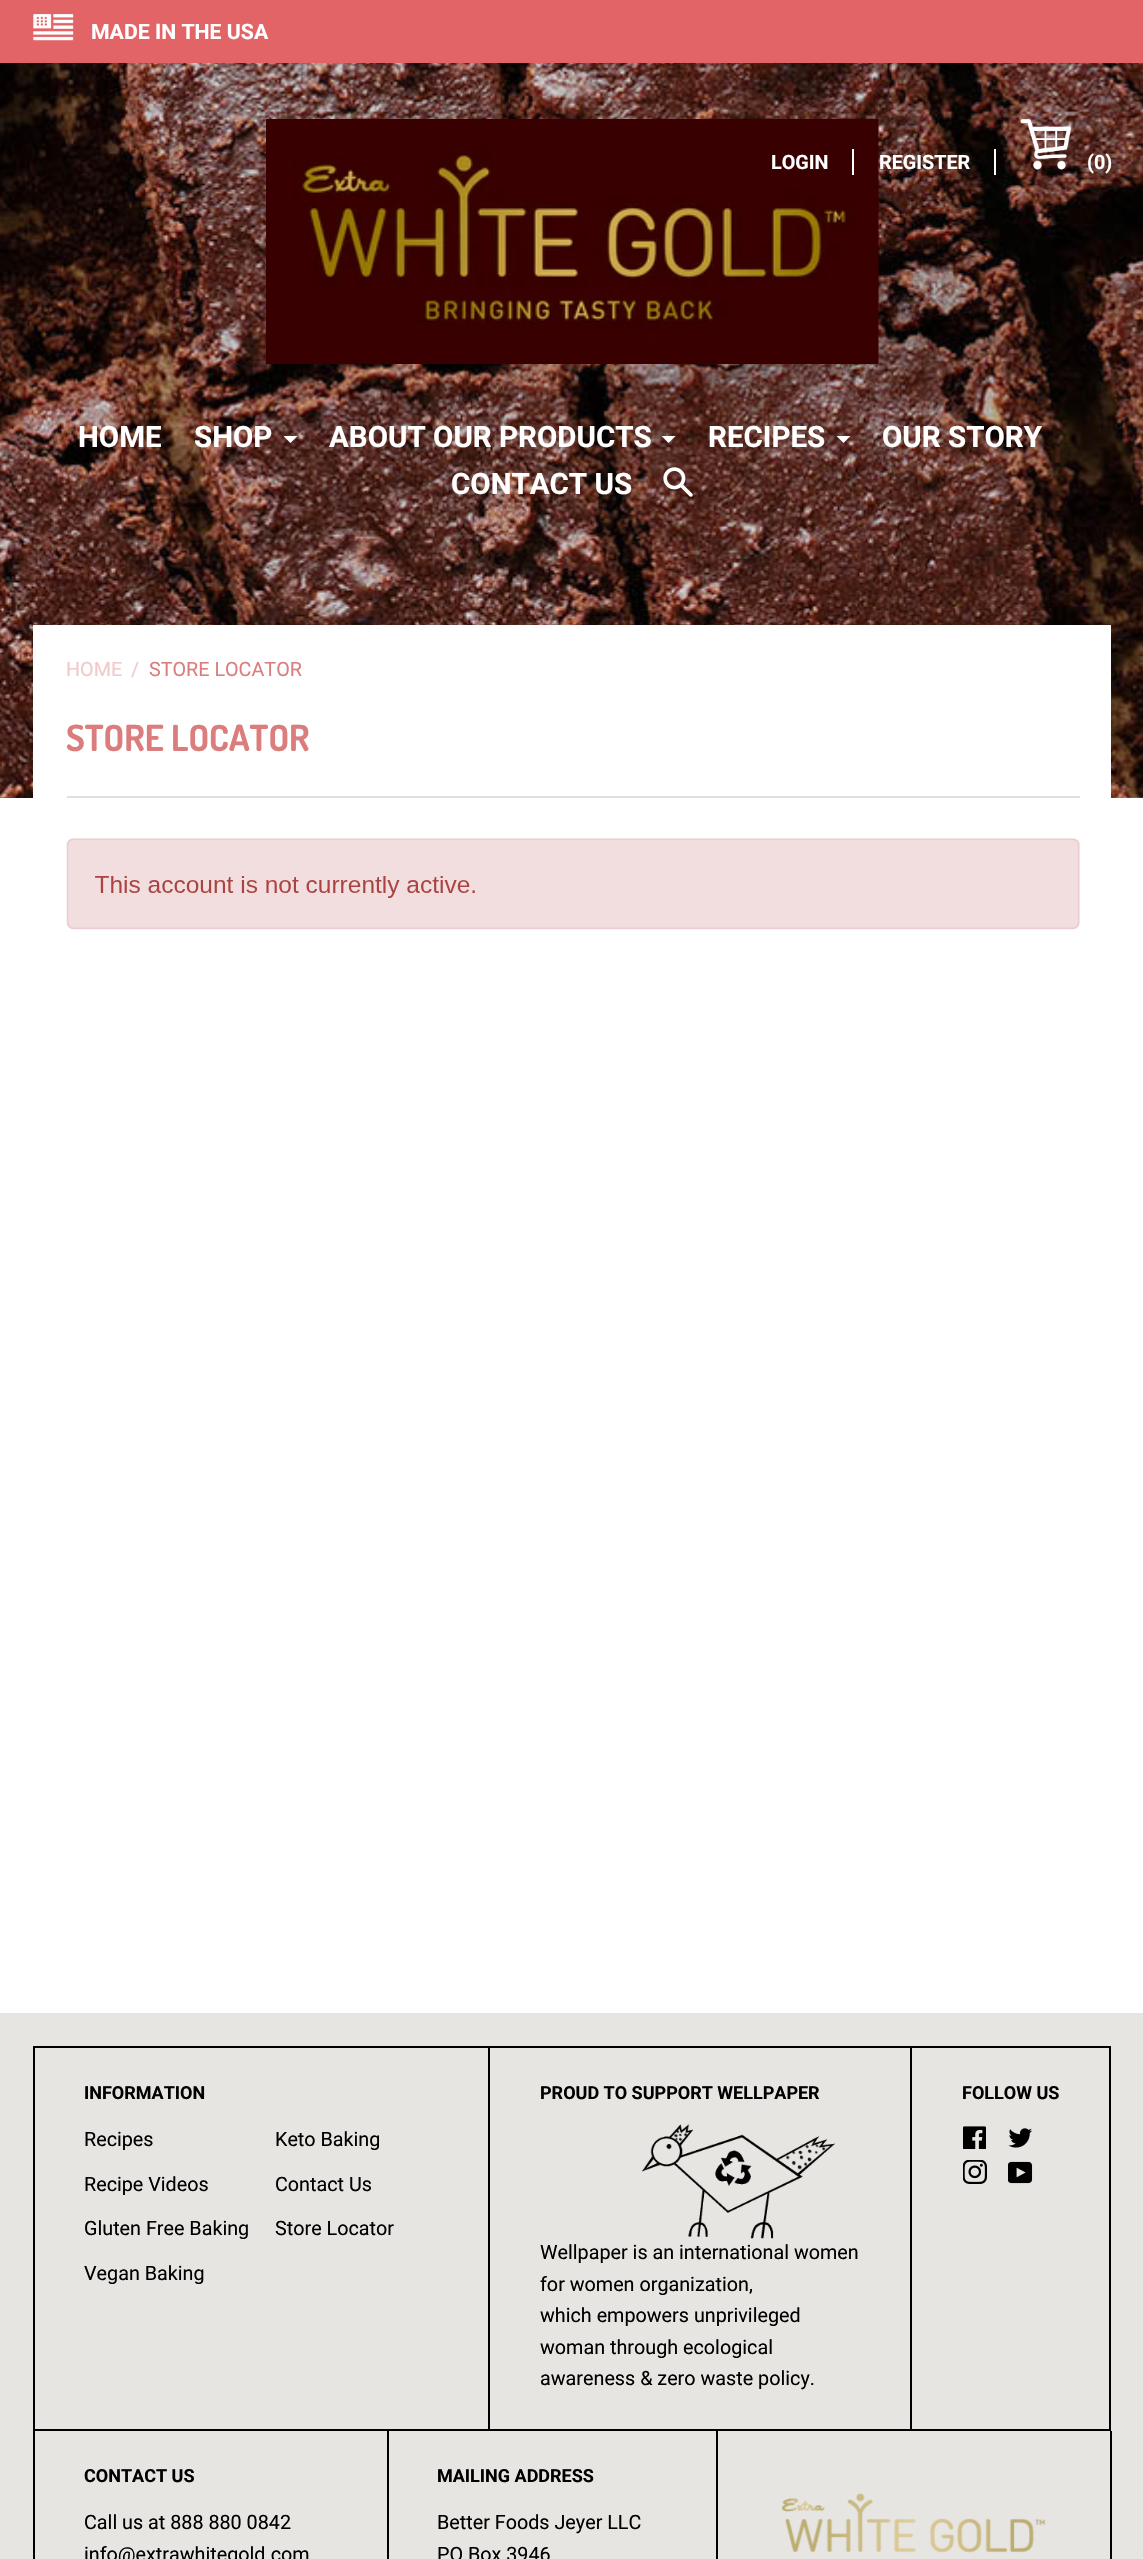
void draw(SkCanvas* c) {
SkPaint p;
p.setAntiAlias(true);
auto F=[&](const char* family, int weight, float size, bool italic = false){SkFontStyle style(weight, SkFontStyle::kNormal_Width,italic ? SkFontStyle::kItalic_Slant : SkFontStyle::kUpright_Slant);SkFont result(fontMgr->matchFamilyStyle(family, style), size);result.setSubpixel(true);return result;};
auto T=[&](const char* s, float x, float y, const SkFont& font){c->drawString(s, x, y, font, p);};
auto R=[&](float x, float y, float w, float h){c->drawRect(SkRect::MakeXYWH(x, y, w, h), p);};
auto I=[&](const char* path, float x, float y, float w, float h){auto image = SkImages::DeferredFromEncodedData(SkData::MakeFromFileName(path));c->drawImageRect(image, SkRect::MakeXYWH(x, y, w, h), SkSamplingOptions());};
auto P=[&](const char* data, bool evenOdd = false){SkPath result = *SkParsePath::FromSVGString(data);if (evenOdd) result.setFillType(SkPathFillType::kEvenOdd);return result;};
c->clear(0xffffffff);
I("1.png",0,63,1143,735);
p.setColor(0xffe36466);
R(0,0,1143,63);
I("2.png",33,14,41,27);
auto f1 = F("Roboto",700,21.25);
p.setColor(0xffffffff);
T("MADE IN THE USA",91,39,f1);
I("3.png",266,119,613,245);
auto f2 = F("Roboto",700,19.75);
T("LOGIN",771,169,f2);
R(852,149,2,26);
T("REGISTER",879,169,f2);
R(994,149,2,26);
I("4.png",1020,119,52,51);
T("(0)",1087,169,f2);
auto f3 = F("Roboto",700,29.5);
T("HOME",78,447,f3);
T("SHOP",194,447,f3);
c->drawPath(P("M283.5 436h14l-7 7z"),p);
T("ABOUT OUR PRODUCTS",329,447,f3);
c->drawPath(P("M661.5 436h14l-7 7z"),p);
T("RECIPES",708,447,f3);
c->drawPath(P("M836.5 436h14l-7 7z"),p);
T("OUR STORY",882,447,f3);
T("CONTACT US",451,494,f3);
I("5.png",663,467,30,30);
R(33,625,1078,173);
auto f4 = F("Roboto",400,19.75);
p.setColor(0xfff1cbcb);
T("HOME",66,676,f4);
T("/",131,676,f4);
p.setColor(0xffdb7d7d);
T("STORE LOCATOR",149,676,f4);
p.setColor(0xffdfdfdf);
R(67,796,1013,2);
auto f5 = F("Dosis",700,36);
p.setColor(0xffdb7d7d);
T("STORE LOCATOR",66,751,f5);
I("6.png",66,838,1014,92);
p.setColor(0xffe6e5e2);
R(0,2013,1143,546);
p.setStroke(true);
p.setStrokeWidth(2);
p.setColor(0xff000000);
c->drawRect(SkRect::MakeXYWH(34,2047,1076,383),p);
p.setStroke(false);
R(488,2048,2,381);
auto f6 = F("Roboto",700,18);
T("INFORMATION",84,2099,f6);
T("Recipes",84,2146,f4);
T("Keto Baking",275,2146,f4);
T("Recipe Videos",84,2191,f4);
T("Contact Us",275,2191,f4);
T("Gluten Free Baking",84,2235,f4);
T("Store Locator",275,2235,f4);
T("Vegan Baking",84,2280,f4);
R(910,2048,2,381);
T("PROUD TO SUPPORT WELLPAPER",540,2099,f6);
I("7.png",642,2124,193,115);
T("Wellpaper is an international women",540,2259,f4);
T("for women organization,",540,2291,f4);
T("which empowers unprivileged",540,2322,f4);
T("woman through ecological",540,2354,f4);
T("awareness & zero waste policy.",540,2385,f4);
T("FOLLOW US",962,2099,f6);
I("8.png",963,2126,23,23);
I("9.png",1008,2128,24,20);
I("10.png",963,2160,24,24);
I("11.png",1008,2161,25,23);
R(1110,2431,2,128);
R(33,2431,2,128);
R(387,2431,2,128);
T("CONTACT US",84,2482,f6);
T("Call us at 888 880 0842",84,2529,f4);
T("info@extrawhitegold.com",84,2561,f4);
R(716,2431,2,128);
T("MAILING ADDRESS",437,2482,f6);
T("Better Foods Jeyer LLC",437,2529,f4);
T("PO Box 3946",437,2561,f4);
I("12.png",782,2493,264,60);
}
